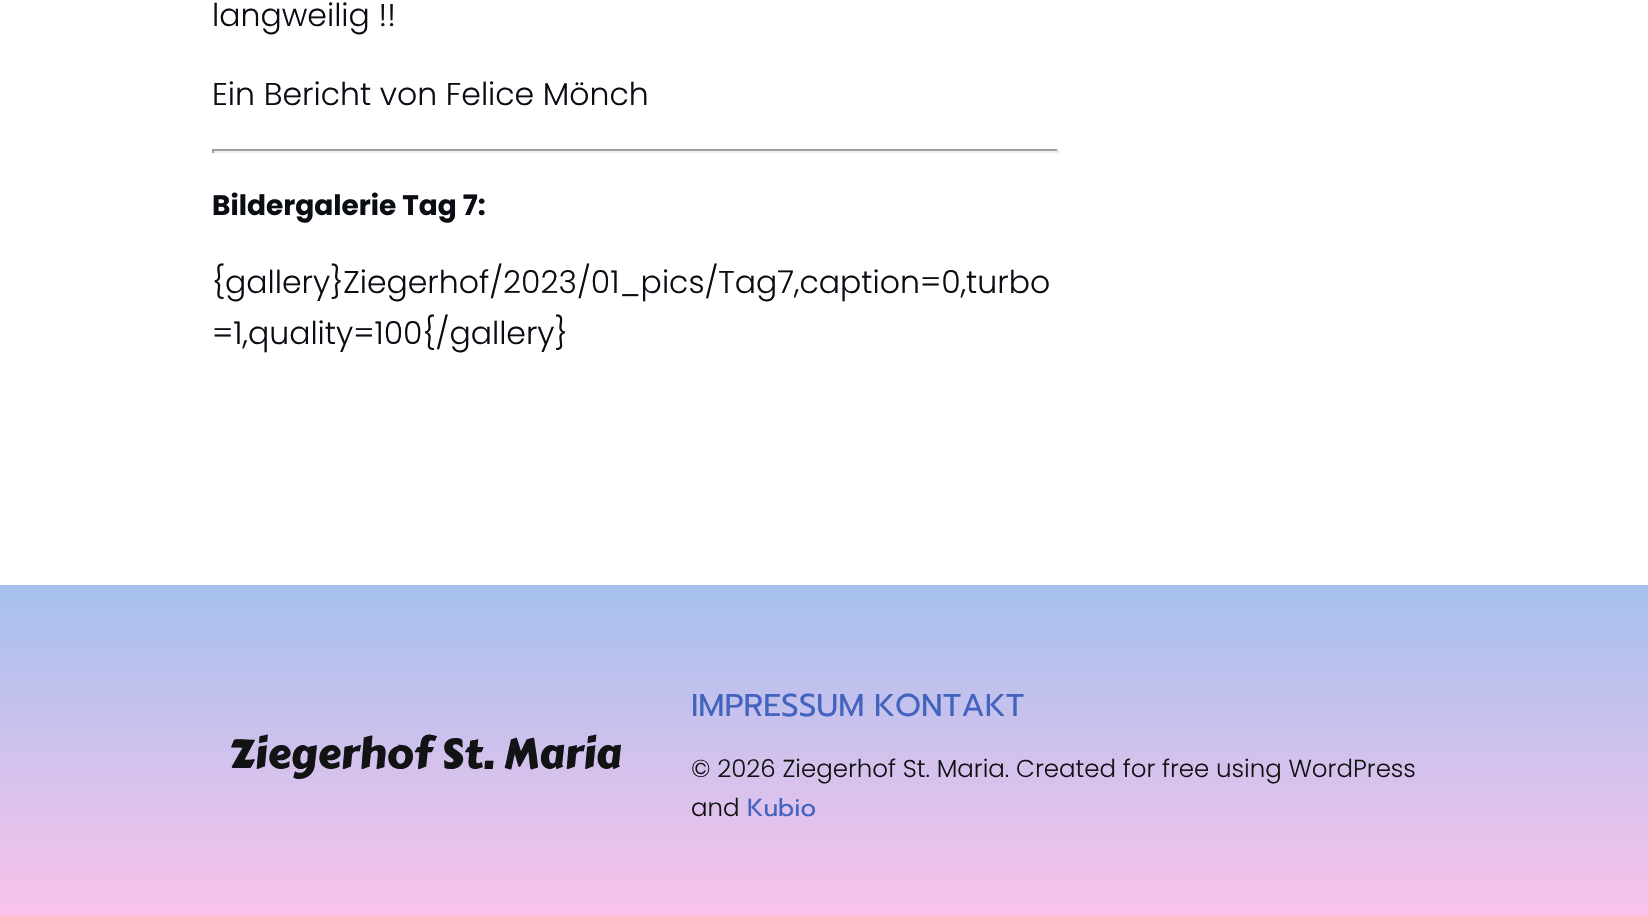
void draw(SkCanvas* c) {
SkPaint p;
p.setAntiAlias(true);
auto F=[&](const char* family, int weight, float size, bool italic = false){SkFontStyle style(weight, SkFontStyle::kNormal_Width,italic ? SkFontStyle::kItalic_Slant : SkFontStyle::kUpright_Slant);SkFont result(fontMgr->matchFamilyStyle(family, style), size);result.setSubpixel(true);return result;};
auto T=[&](const char* s, float x, float y, const SkFont& font){c->drawString(s, x, y, font, p);};
auto R=[&](float x, float y, float w, float h){c->drawRect(SkRect::MakeXYWH(x, y, w, h), p);};
c->clear(0xffffffff);
auto f1 = F("Poppins",300,31.5);
p.setColor(0xff0a0e14);
T("langweilig !!",212,26,f1);
T("Ein Bericht von Felice Mönch",212,105,f1);
p.setColor(0xff9f9f9f);
R(212,149,847,2);
p.setColor(0xffeeeeee);
R(1057,149,2,4);
R(212,151,847,2);
p.setColor(0xff9f9f9f);
R(212,149,2,4);
auto f2 = F("Poppins",700,28);
p.setColor(0xff0a0e14);
T("Bildergalerie Tag 7:",212,215,f2);
T("{gallery}Ziegerhof/2023/01_pics/Tag7,caption=0,turbo",212,293,f1);
T("=1,quality=100{/gallery}",212,344,f1);
{
const SkColor colors[] = {0xfffbc2eb,0xffa6c1ee};
const float stops[] = {0,1};
const SkPoint ends[] = {{824,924}, {824,585}};
p.setShader(SkGradientShader::MakeLinear(ends, colors, stops, 2, SkTileMode::kClamp));
p.setAlpha(255);
}
R(0,585,1648,331);
auto f3 = F("Carter One",400,42);
p.setShader(nullptr);
p.setColor(0xff121315);
T("Ziegerhof St. Maria",229,768,f3);
auto f4 = F("Prompt",400,31.5);
p.setColor(0xff4263be);
T("IMPRESSUM",691,716,f4);
T("KONTAKT",874,716,f4);
auto f5 = F("Poppins",300,24.5);
p.setColor(0xff121315);
T("© 2026 Ziegerhof St. Maria. Created for free using WordPress",691,777,f5);
T("and",691,816,f5);
auto f6 = F("Prompt",400,24.5);
p.setColor(0xff4263be);
T("Kubio",747,816,f6);
}
